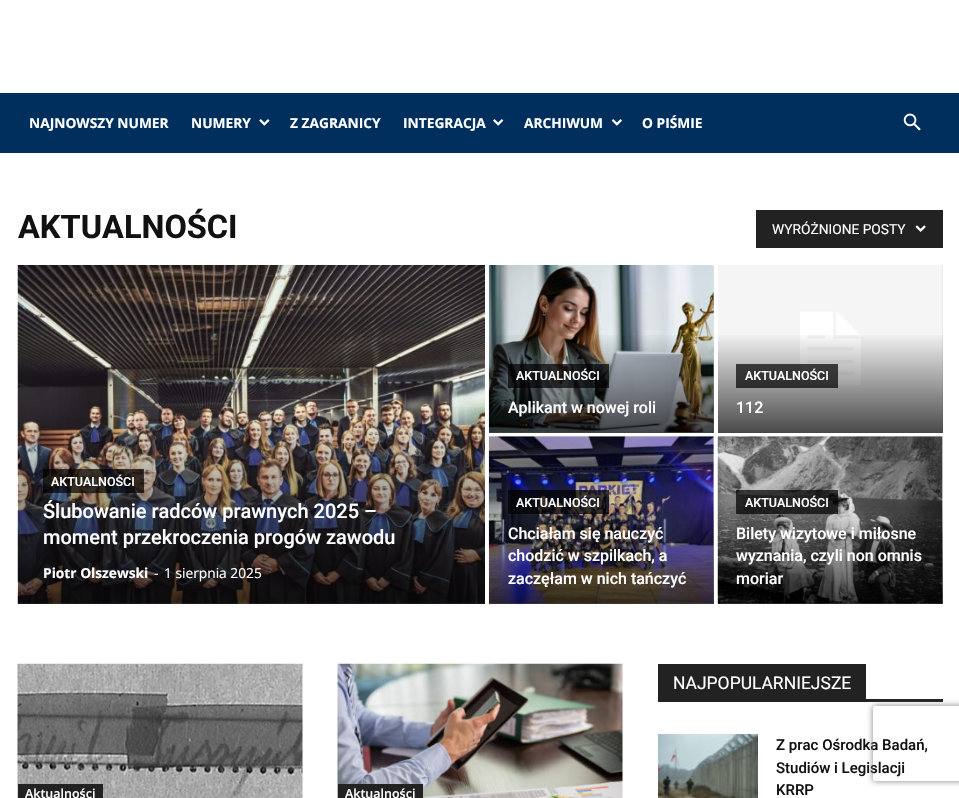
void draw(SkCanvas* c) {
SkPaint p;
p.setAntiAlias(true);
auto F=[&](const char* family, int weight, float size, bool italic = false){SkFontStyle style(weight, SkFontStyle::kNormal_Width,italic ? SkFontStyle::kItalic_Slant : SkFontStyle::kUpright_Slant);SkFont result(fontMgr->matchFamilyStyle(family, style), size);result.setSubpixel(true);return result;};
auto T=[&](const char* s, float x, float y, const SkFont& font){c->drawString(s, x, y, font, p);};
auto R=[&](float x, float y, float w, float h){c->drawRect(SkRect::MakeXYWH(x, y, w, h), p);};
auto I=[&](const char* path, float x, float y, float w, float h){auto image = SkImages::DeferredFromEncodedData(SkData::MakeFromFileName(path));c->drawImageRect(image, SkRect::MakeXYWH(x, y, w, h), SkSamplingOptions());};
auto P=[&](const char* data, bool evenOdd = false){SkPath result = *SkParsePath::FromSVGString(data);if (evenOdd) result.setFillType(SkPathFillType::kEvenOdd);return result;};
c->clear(0xffffffff);
p.setColor(0xff002f5d);
R(0,93,959,60);
auto f1 = F("Open Sans",700,13.75);
p.setColor(0xffffffff);
T("NAJNOWSZY NUMER",29,128,f1);
T("NUMERY",191,128,f1);
I("1.png",259,119,11,7);
T("Z ZAGRANICY",290,128,f1);
T("INTEGRACJA",403,128,f1);
I("2.png",493,119,11,7);
T("ARCHIWUM",524,128,f1);
I("3.png",611,119,11,7);
T("O PIŚMIE",642,128,f1);
I("4.png",903,113,18,18);
auto f2 = F("Roboto",700,32.5);
p.setColor(0xff111111);
T("AKTUALNOŚCI",18,238,f2);
p.setColor(0xff222222);
R(756,210,187,38);
auto f3 = F("Roboto",400,13.75);
p.setColor(0xffffffff);
T("WYRÓŻNIONE POSTY",772,234,f3);
I("5.png",915,225,11,7);
I("6.png",17,265,468,339);
{
const SkColor colors[] = {0x00000000,0xb3000000};
const float stops[] = {.4,1};
const SkPoint ends[] = {{251,265}, {251,604}};
p.setShader(SkGradientShader::MakeLinear(ends, colors, stops, 2, SkTileMode::kClamp));
p.setAlpha(255);
}
R(18,407,467,197);
p.setShader(nullptr);
p.setColor(0xb3000000);
R(43,469,101,24);
auto f4 = F("Roboto",500,12.5);
p.setColor(0xffffffff);
T("AKTUALNOŚCI",51,486,f4);
auto f5 = F("Roboto",500,20);
T("Ślubowanie radców prawnych 2025 –",43,518,f5);
T("moment przekroczenia progów zawodu",43,544,f5);
T("Piotr Olszewski",43,578,f1);
auto f6 = F("Open Sans",400,13.75);
T("-",154,578,f6);
T("1 sierpnia 2025",164,578,f6);
p.setColor(0xffe5e5e5);
R(489,265,225,168);
I("7.png",488,265,226,168);
{
const SkColor colors[] = {0x00000000,0xb3000000};
const float stops[] = {.4,1};
const SkPoint ends[] = {{601,265}, {601,433}};
p.setShader(SkGradientShader::MakeLinear(ends, colors, stops, 2, SkTileMode::kClamp));
p.setAlpha(255);
}
R(489,335,225,98);
p.setShader(nullptr);
p.setColor(0xb3000000);
R(508,364,101,24);
p.setColor(0xffffffff);
T("AKTUALNOŚCI",516,380,f4);
auto f7 = F("Roboto",500,16);
T("Aplikant w nowej roli",508,413,f7);
p.setColor(0xffe5e5e5);
R(718,265,225,168);
I("8.png",718,265,225,168);
{
const SkColor colors[] = {0x00000000,0xb3000000};
const float stops[] = {.4,1};
const SkPoint ends[] = {{830,265}, {830,433}};
p.setShader(SkGradientShader::MakeLinear(ends, colors, stops, 2, SkTileMode::kClamp));
p.setAlpha(255);
}
R(718,335,225,98);
p.setShader(nullptr);
p.setColor(0xb3000000);
R(736,364,102,24);
p.setColor(0xffffffff);
T("AKTUALNOŚCI",745,380,f4);
T("112",736,413,f7);
p.setColor(0xffe5e5e5);
R(489,436,225,168);
I("9.png",488,436,226,168);
{
const SkColor colors[] = {0x00000000,0xb3000000};
const float stops[] = {.4,1};
const SkPoint ends[] = {{601,436}, {601,604}};
p.setShader(SkGradientShader::MakeLinear(ends, colors, stops, 2, SkTileMode::kClamp));
p.setAlpha(255);
}
R(489,506,225,98);
p.setShader(nullptr);
p.setColor(0xb3000000);
R(508,490,101,24);
p.setColor(0xffffffff);
T("AKTUALNOŚCI",516,507,f4);
T("Chciałam się nauczyć",508,539,f7);
T("chodzić w szpilkach, a",508,561,f7);
T("zaczęłam w nich tańczyć",508,584,f7);
p.setColor(0xffe5e5e5);
R(718,436,225,168);
I("10.png",717,436,226,168);
{
const SkColor colors[] = {0x00000000,0xb3000000};
const float stops[] = {.4,1};
const SkPoint ends[] = {{830,436}, {830,604}};
p.setShader(SkGradientShader::MakeLinear(ends, colors, stops, 2, SkTileMode::kClamp));
p.setAlpha(255);
}
R(718,506,225,98);
p.setShader(nullptr);
p.setColor(0xb3000000);
R(736,490,102,24);
p.setColor(0xffffffff);
T("AKTUALNOŚCI",745,507,f4);
T("Bilety wizytowe i miłosne",736,539,f7);
T("wyznania, czyli non omnis",736,561,f7);
T("moriar",736,584,f7);
I("11.png",17,663,286,135);
p.setColor(0xff222222);
R(18,784,85,14);
auto f8 = F("Open Sans",600,12.5);
p.setColor(0xffffffff);
T("Aktualności",25,798,f8);
I("12.png",337,663,286,135);
p.setColor(0xff222222);
R(338,784,85,14);
p.setColor(0xffffffff);
T("Aktualności",345,798,f8);
p.setColor(0xff222222);
R(658,699,285,3);
R(658,664,208,35);
auto f9 = F("Roboto",400,17.5);
p.setColor(0xffffffff);
T("NAJPOPULARNIEJSZE",673,689,f9);
I("13.png",658,734,100,64);
auto f10 = F("Roboto",500,15);
p.setColor(0xff111111);
T("Z prac Ośrodka Badań,",776,750,f10);
T("Studiów i Legislacji",776,773,f10);
T("KRRP",776,795,f10);
c->save();
c->clipPath(P("M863 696h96v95h-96zm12.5 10h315c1.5 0 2.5 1 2.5 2.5v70c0 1.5-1 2.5-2.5 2.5h-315c-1.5 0-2.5-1-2.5-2.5v-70c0-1.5 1-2.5 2.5-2.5z",true),true);
p.setColor(0xff808080);
p.setMaskFilter(SkMaskFilter::MakeBlur(kNormal_SkBlurStyle, 3));
c->drawRoundRect(SkRect::MakeXYWH(873,706,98,75),2.5,2.5,p);
p.setMaskFilter(nullptr);
c->restore();
}
